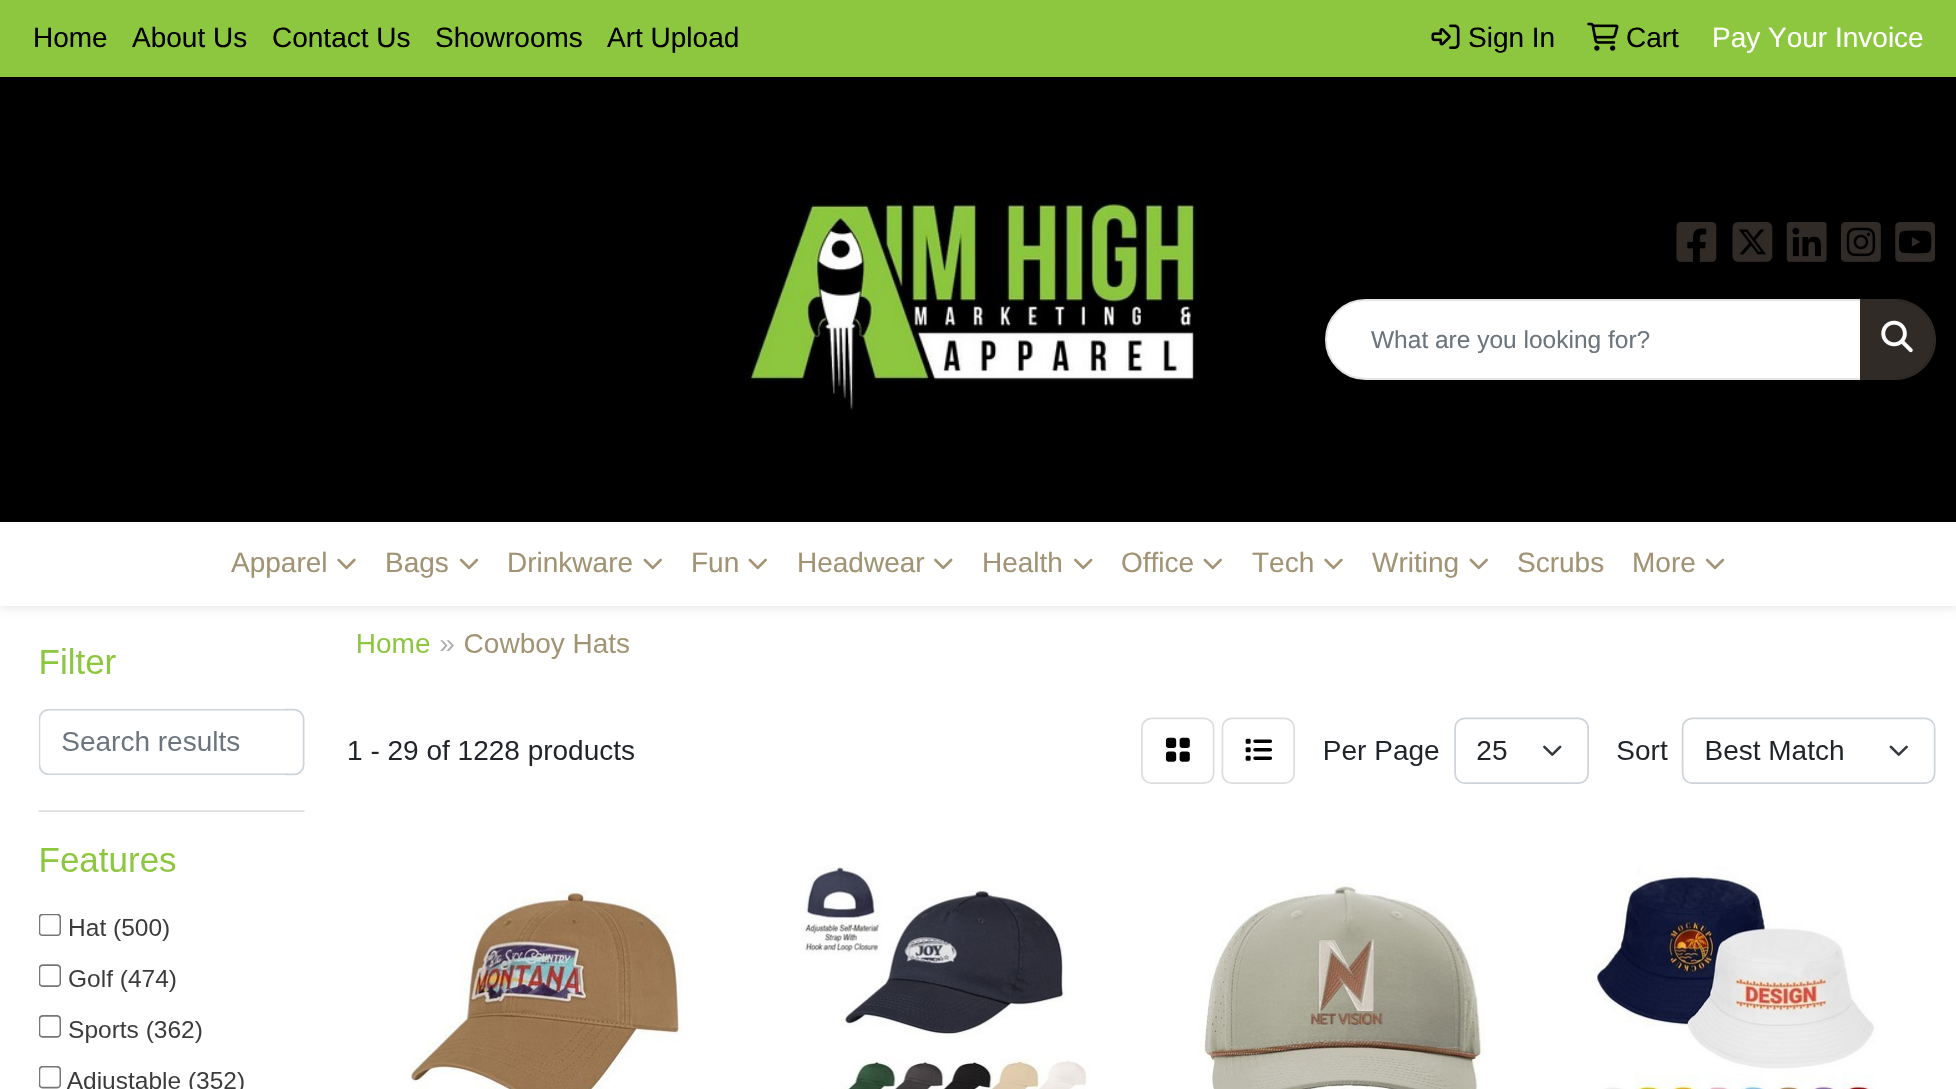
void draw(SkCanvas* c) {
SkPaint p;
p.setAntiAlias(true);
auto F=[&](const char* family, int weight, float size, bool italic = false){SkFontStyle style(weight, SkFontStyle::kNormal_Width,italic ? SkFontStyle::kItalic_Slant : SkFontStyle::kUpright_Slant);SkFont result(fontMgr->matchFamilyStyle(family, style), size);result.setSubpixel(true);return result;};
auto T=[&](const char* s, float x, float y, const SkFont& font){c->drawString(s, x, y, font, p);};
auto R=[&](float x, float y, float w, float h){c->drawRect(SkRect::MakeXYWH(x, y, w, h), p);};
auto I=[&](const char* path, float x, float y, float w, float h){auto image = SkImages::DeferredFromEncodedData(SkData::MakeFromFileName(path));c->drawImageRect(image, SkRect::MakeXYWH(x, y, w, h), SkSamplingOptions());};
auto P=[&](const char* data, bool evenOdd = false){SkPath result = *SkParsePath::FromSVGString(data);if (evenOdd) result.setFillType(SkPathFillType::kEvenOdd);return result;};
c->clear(0xff000000);
p.setColor(0xff8dc63f);
R(0,0,1956,77);
auto f1 = F("Liberation Sans",400,28);
p.setColor(0xff000000);
T("Home",33,47,f1);
T("About Us",132,47,f1);
T("Contact Us",272,47,f1);
T("Showrooms",435,47,f1);
T("Art Upload",607,47,f1);
I("1.png",1431,24,29,25);
T("Sign In",1468,47,f1);
I("2.png",1587,22,32,29);
T("Cart",1626,47,f1);
p.setColor(0xffffffff);
T("Pay Your Invoice",1712,47,f1);
I("3.png",743,192,460,218);
I("4.png",1676,222,41,40);
I("5.png",1732,222,41,40);
I("6.png",1786,222,41,40);
I("7.png",1841,222,40,40);
I("8.png",1895,222,40,40);
c->drawPath(P("M1365.5 300h495.5v79h-495.5c-22 0-39.5-17.5-39.5-39.5c0-22 17.5-39.5 39.5-39.5z"),p);
p.setStroke(true);
p.setStrokeWidth(2);
p.setColor(0xffe4e4e4);
c->drawPath(P("M1365.5 300h495.5v79h-495.5c-22 0-39.5-17.5-39.5-39.5c0-22 17.5-39.5 39.5-39.5z"),p);
auto f2 = F("Liberation Sans",400,24.5);
p.setStroke(false);
p.setColor(0xff6c757d);
T("What are you looking for?",1371,348,f2);
p.setColor(0xff302b27);
c->drawPath(P("M1860 301h35.5c21.5 0 38.5 17 38.5 38.5c0 21.5-17 38.5-38.5 38.5h-35.5z"),p);
c->drawPath(P("M1860 299h35c22 0 41 18 41 41c0 22-19 40-41 40h-35zm0 2h35c22 0 39 17 39 39c0 21-17 38-39 38h-35z",true),p);
I("9.png",1881,320,32,33);
I("14.png",0,606,1956,483);
p.setColor(0x12000000);
p.setMaskFilter(SkMaskFilter::MakeBlur(kNormal_SkBlurStyle, 3.5));
c->drawRect(SkRect::MakeXYWH(0,525,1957,84),p);
p.setMaskFilter(nullptr);
p.setColor(0xffffffff);
R(0,522,1956,84);
p.setColor(0xffa19373);
T("Apparel",231,572,f1);
I("10.png",337,558,19,12);
T("Bags",385,572,f1);
I("11.png",459,558,20,12);
T("Drinkware",507,572,f1);
I("12.png",643,558,19,12);
T("Fun",691,572,f1);
I("12.png",748,558,19,12);
T("Headwear",797,572,f1);
I("13.png",934,558,19,12);
T("Health",982,572,f1);
I("13.png",1074,558,19,12);
T("Office",1121,572,f1);
I("12.png",1203,558,19,12);
T("Tech",1252,572,f1);
I("10.png",1324,558,19,12);
T("Writing",1372,572,f1);
I("12.png",1469,558,19,12);
T("Scrubs",1517,572,f1);
T("More",1632,572,f1);
I("11.png",1705,558,20,12);
}
